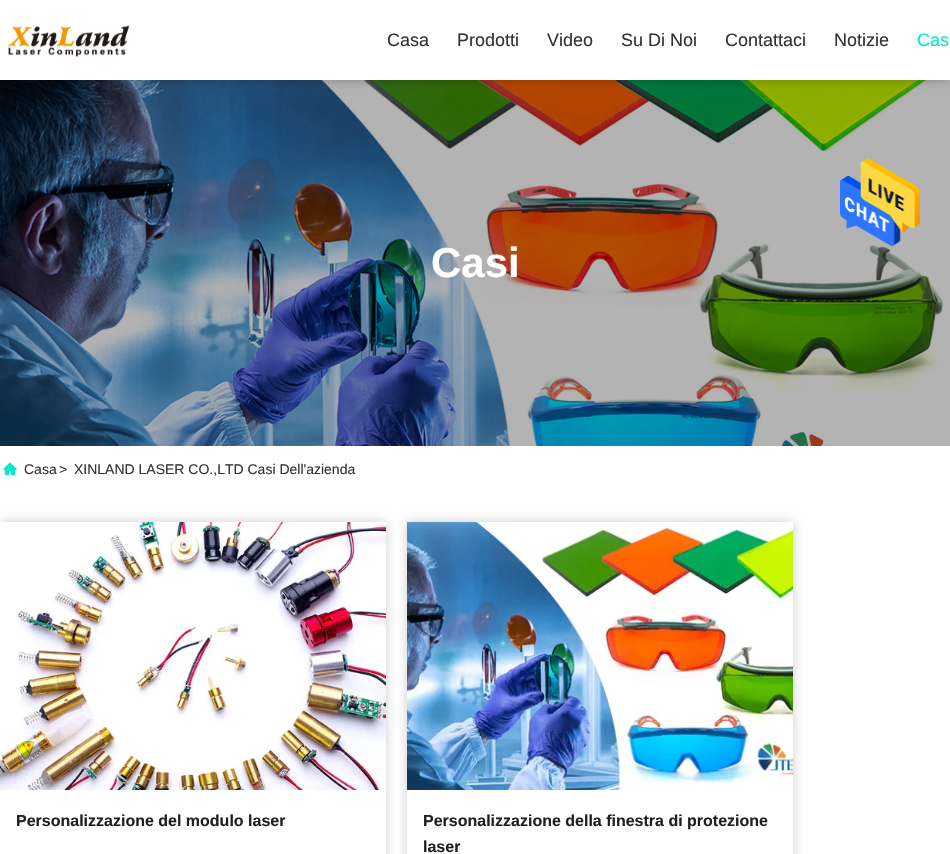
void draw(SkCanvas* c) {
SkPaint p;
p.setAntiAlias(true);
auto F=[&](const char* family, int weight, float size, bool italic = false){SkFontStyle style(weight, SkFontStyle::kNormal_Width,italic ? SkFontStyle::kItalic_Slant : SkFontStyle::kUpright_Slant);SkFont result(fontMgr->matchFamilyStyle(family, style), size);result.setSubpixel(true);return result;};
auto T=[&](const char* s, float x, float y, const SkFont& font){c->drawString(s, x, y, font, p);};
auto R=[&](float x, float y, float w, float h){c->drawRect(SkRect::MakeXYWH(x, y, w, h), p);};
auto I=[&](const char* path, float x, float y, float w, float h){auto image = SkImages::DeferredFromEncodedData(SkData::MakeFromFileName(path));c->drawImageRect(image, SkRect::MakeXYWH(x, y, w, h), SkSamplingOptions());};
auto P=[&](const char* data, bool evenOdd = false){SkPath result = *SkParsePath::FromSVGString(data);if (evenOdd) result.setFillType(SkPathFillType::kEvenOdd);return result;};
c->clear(0xffffffff);
p.setColor(0xffb3b3b3);
R(944,80,6,366);
I("3.png",0,80,944,366);
p.setColor(0x40000000);
p.setMaskFilter(SkMaskFilter::MakeBlur(kNormal_SkBlurStyle, 5));
c->drawRect(SkRect::MakeXYWH(0,0,950,80),p);
p.setMaskFilter(nullptr);
p.setColor(0xffffffff);
R(0,0,950,80);
I("1.png",7,25,123,33);
auto f1 = F("Liberation Sans",400,18);
p.setColor(0xff333333);
T("Casa",387,46,f1);
T("Prodotti",457,46,f1);
T("Video",547,46,f1);
T("Su Di Noi",621,46,f1);
T("Contattaci",725,46,f1);
T("Notizie",834,46,f1);
p.setColor(0xff01edc9);
T("Cas",917,46,f1);
I("2.png",840,158,80,89);
auto f2 = F("Liberation Sans",700,42);
p.setColor(0xffffffff);
T("Casi",431,277,f2);
I("4.png",3,462,14,13);
auto f3 = F("Liberation Sans",400,14);
p.setColor(0xff333333);
T("Casa",24,474,f3);
T(">",59,474,f3);
T("XINLAND LASER CO.,LTD Casi Dell'azienda",74,474,f3);
c->save();
c->clipPath(P("M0 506h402v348h-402zm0 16h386v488h-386z",true),true);
p.setColor(0x33000000);
p.setMaskFilter(SkMaskFilter::MakeBlur(kNormal_SkBlurStyle, 5));
c->drawRect(SkRect::MakeXYWH(0,522,386,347),p);
p.setMaskFilter(nullptr);
c->restore();
I("5.png",0,522,386,268);
auto f4 = F("Liberation Sans",700,16);
p.setColor(0xff202020);
T("Personalizzazione del modulo laser",16,826,f4);
c->save();
c->clipPath(P("M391 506h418v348h-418zm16 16h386v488h-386z",true),true);
p.setColor(0x33000000);
p.setMaskFilter(SkMaskFilter::MakeBlur(kNormal_SkBlurStyle, 5));
c->drawRect(SkRect::MakeXYWH(407,522,386,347),p);
p.setMaskFilter(nullptr);
c->restore();
I("6.png",407,522,386,268);
p.setColor(0xff202020);
T("Personalizzazione della finestra di protezione",423,826,f4);
T("laser",423,852,f4);
}
